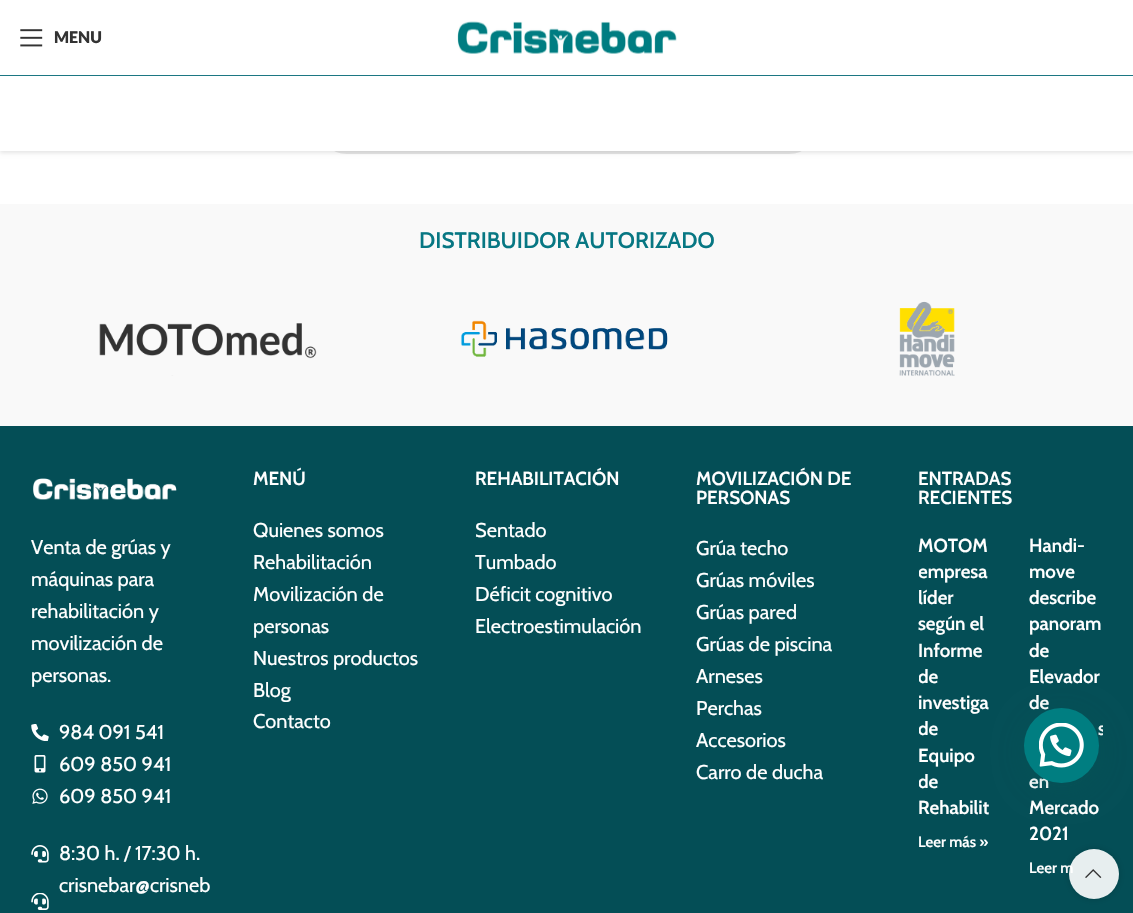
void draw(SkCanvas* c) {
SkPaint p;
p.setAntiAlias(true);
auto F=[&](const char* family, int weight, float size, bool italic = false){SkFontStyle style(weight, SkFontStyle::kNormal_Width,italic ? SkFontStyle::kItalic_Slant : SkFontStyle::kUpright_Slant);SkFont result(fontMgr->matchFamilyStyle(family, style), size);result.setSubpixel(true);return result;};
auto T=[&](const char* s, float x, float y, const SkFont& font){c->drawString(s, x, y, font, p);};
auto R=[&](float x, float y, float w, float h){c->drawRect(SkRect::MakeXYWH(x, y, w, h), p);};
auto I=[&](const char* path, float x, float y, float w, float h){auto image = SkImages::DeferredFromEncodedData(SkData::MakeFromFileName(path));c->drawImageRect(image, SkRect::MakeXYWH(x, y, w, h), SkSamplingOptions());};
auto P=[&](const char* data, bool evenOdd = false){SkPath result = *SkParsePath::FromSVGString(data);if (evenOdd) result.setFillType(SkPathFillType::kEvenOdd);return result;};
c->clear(0xffffffff);
p.setStroke(true);
p.setStrokeWidth(3);
p.setColor(0xffe6e6e6);
c->drawRoundRect(SkRect::MakeXYWH(319.5,97.5,497,55),27.5,27.5,p);
p.setStroke(false);
p.setColor(0x1a000000);
p.setMaskFilter(SkMaskFilter::MakeBlur(kNormal_SkBlurStyle, 2));
c->drawRect(SkRect::MakeXYWH(0,1,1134,152),p);
p.setMaskFilter(nullptr);
p.setColor(0xffffffff);
R(0,0,1133,75);
p.setColor(0xff1c7783);
R(0,75,1133,1);
I("1.png",20,29,23,18);
auto f1 = F("Lato",900,16);
p.setColor(0xff333333);
T("MENU",54,43,f1);
I("2.png",457,21,220,33);
p.setColor(0xffffffff);
R(0,76,1133,75);
p.setColor(0xfff9f9f9);
R(0,204,1133,222);
auto f2 = F("Cabin",600,22.5);
p.setColor(0xff077783);
T("DISTRIBUIDOR AUTORIZADO",419,248,f2);
I("3.png",99,323,218,53);
I("4.png",460,320,208,37);
I("5.png",899,301,56,75);
p.setColor(0xff044e56);
R(0,426,1133,487);
I("6.png",33,478,144,22);
auto f3 = F("Cabin",400,20);
p.setColor(0xffffffff);
T("Venta de grúas y",31,554,f3);
T("máquinas para",31,586,f3);
T("rehabilitación y",31,618,f3);
T("movilización de",31,650,f3);
T("personas.",31,682,f3);
I("7.png",31,724,18,17);
T("984 091 541",59,739,f3);
I("8.png",34,755,12,18);
T("609 850 941",59,771,f3);
I("9.png",32,788,16,16);
T("609 850 941",59,803,f3);
I("10.png",31,845,18,18);
T("8:30 h. / 17:30 h.",59,860,f3);
T("crisnebar@crisneb",59,892,f3);
I("11.png",31,893,18,17);
auto f4 = F("Cabin",600,18.75);
T("MENÚ",253,485,f4);
T("Quienes somos",253,537,f3);
T("Rehabilitación",253,569,f3);
T("Movilización de",253,601,f3);
T("personas",253,633,f3);
T("Nuestros productos",253,665,f3);
T("Blog",253,697,f3);
T("Contacto",253,728,f3);
T("REHABILITACIÓN",475,485,f4);
T("Sentado",475,537,f3);
T("Tumbado",475,569,f3);
T("Déficit cognitivo",475,601,f3);
T("Electroestimulación",475,633,f3);
T("MOVILIZACIÓN DE",696,485,f4);
T("PERSONAS",696,504,f4);
T("Grúa techo",696,555,f3);
T("Grúas móviles",696,587,f3);
T("Grúas pared",696,619,f3);
T("Grúas de piscina",696,651,f3);
T("Arneses",696,683,f3);
T("Perchas",696,715,f3);
T("Accesorios",696,747,f3);
T("Carro de ducha",696,779,f3);
T("ENTRADAS",918,485,f4);
T("RECIENTES",918,504,f4);
T("MOTOM",918,552,f4);
c->save();
c->clipRect(SkRect::MakeXYWH(919,533,72,351));
T("empresa",918,578,f4);
c->restore();
T("líder",918,604,f4);
T("según el",918,630,f4);
T("Informe",918,657,f4);
c->save();
c->clipRect(SkRect::MakeXYWH(919,533,72,351));
T("de",918,683,f4);
c->restore();
T("investiga",918,709,f4);
c->save();
c->clipRect(SkRect::MakeXYWH(919,533,72,351));
T("de",918,735,f4);
c->restore();
T("Equipo",918,762,f4);
c->save();
c->clipRect(SkRect::MakeXYWH(919,533,72,351));
T("de",918,788,f4);
c->restore();
T("Rehabilit",918,814,f4);
auto f5 = F("Cabin",600,15);
T("Leer más »",918,847,f5);
T("Handi-",1029,552,f4);
T("move",1029,578,f4);
T("describe",1029,604,f4);
T("panoram",1029,630,f4);
T("de",1029,657,f4);
T("Elevador",1029,683,f4);
T("de",1029,709,f4);
c->save();
c->clipRect(SkRect::MakeXYWH(1029,533,74,351));
T("s",1098,735,f4);
c->restore();
T("en",1029,788,f4);
T("Mercado",1029,814,f4);
T("2021",1029,840,f4);
T("Leer m",1029,873,f5);
p.setColor(0x3d075e54);
p.setMaskFilter(SkMaskFilter::MakeBlur(kNormal_SkBlurStyle, 15));
c->drawRoundRect(SkRect::MakeXYWH(1025,715,75,75),37.5,37.5,p);
p.setMaskFilter(nullptr);
p.setColor(0xff007e81);
c->drawCircle(1061.5,745.5,37.5,p);
I("12.png",1039,723,45,45);
c->save();
c->clipPath(P("M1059 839h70v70h-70zm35 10c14 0 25 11 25 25c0 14-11 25-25 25c-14 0-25-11-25-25c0-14 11-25 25-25z",true),true);
p.setColor(0x2b000000);
p.setMaskFilter(SkMaskFilter::MakeBlur(kNormal_SkBlurStyle, 3));
c->drawRoundRect(SkRect::MakeXYWH(1069,849,50,50),25,25,p);
p.setMaskFilter(nullptr);
c->restore();
p.setColor(0xe6ffffff);
c->drawCircle(1094,874,25,p);
I("13.png",1085,869,17,9);
}
